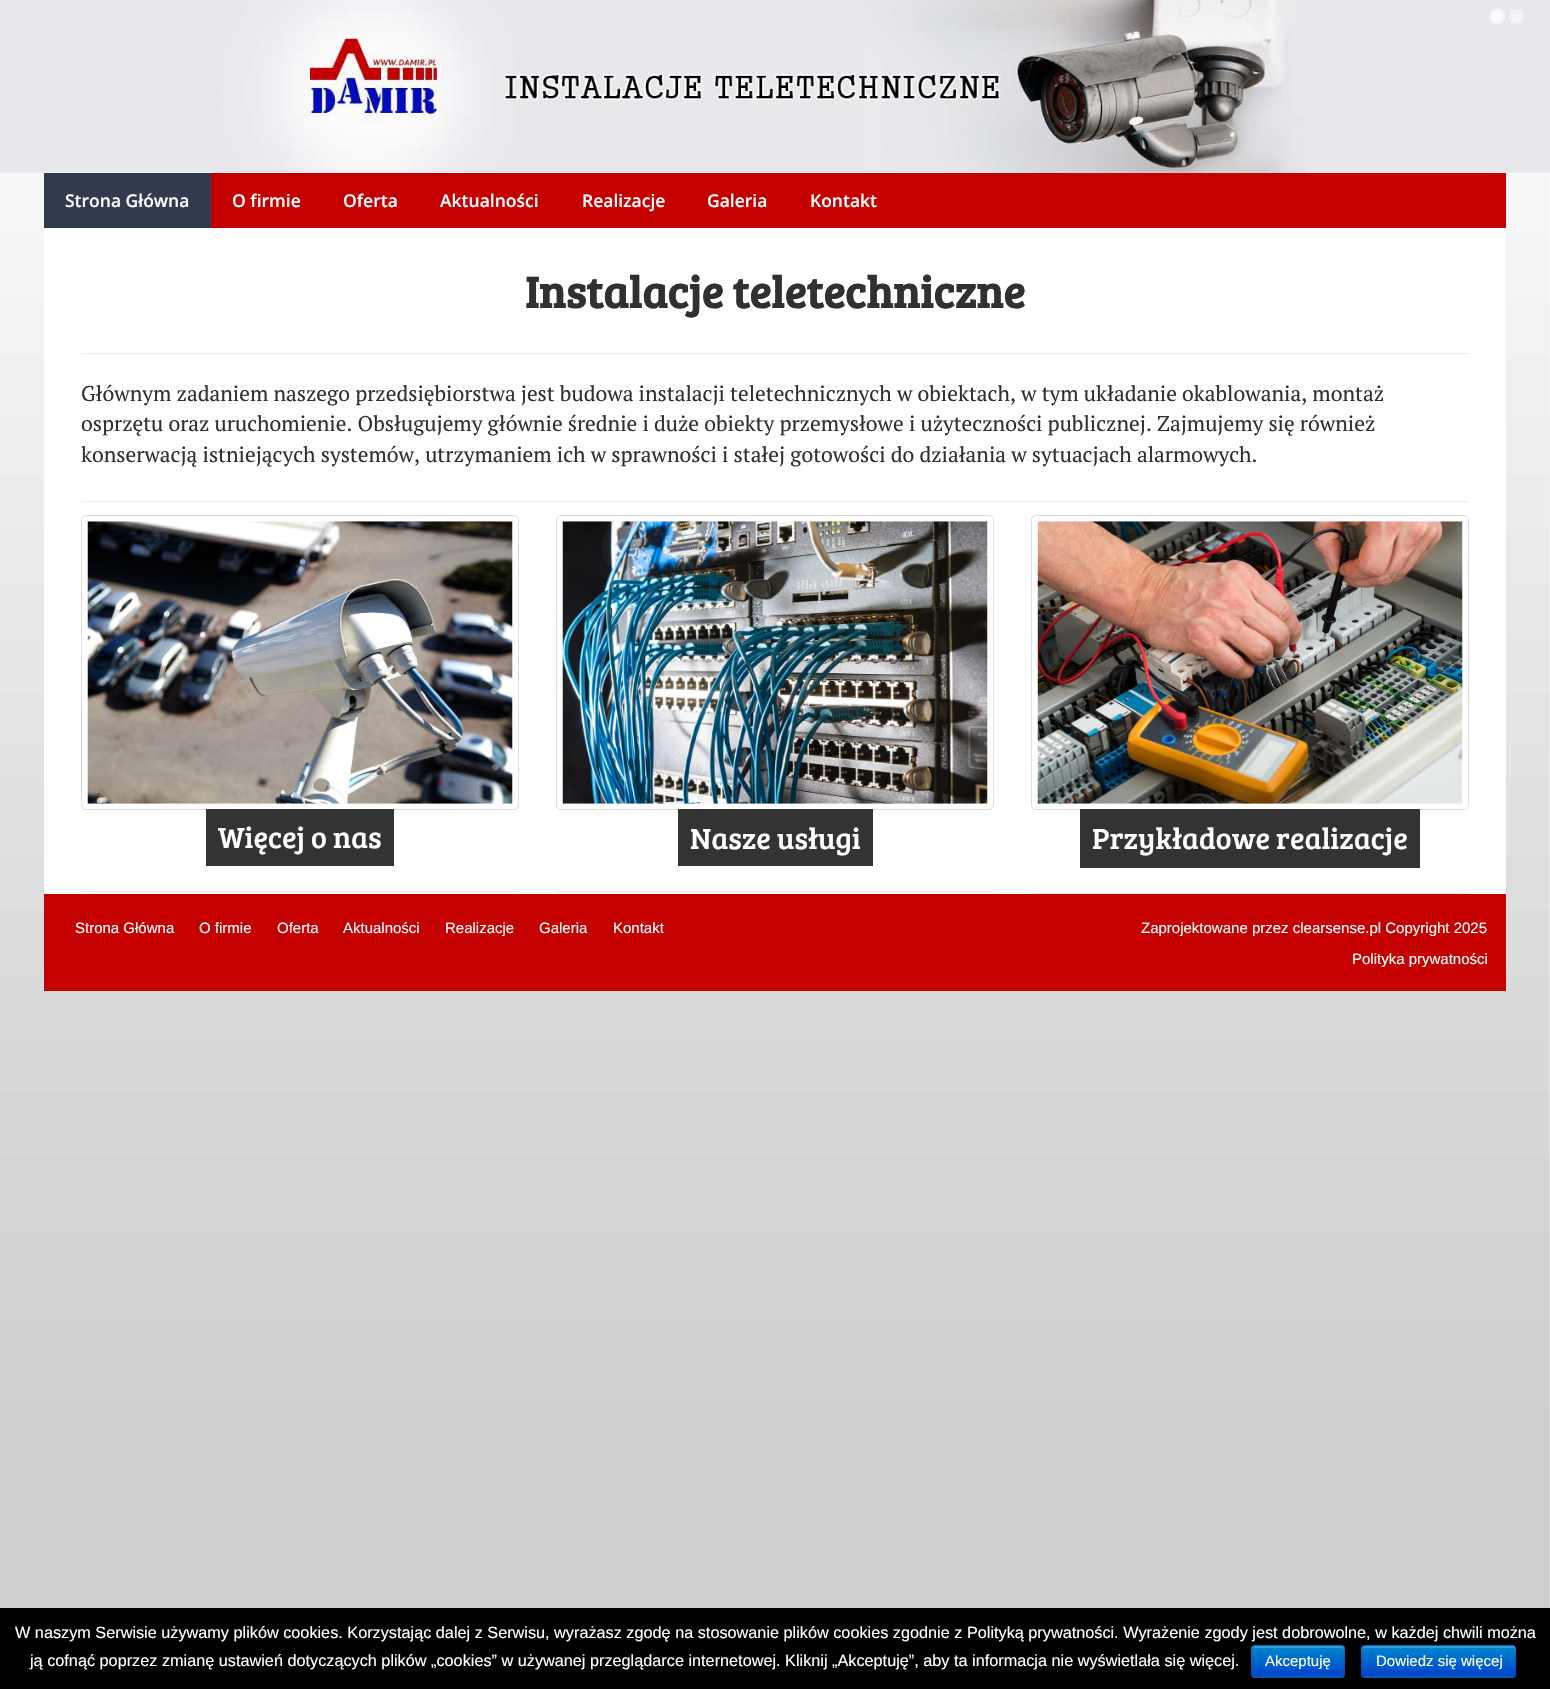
void draw(SkCanvas* c) {
SkPaint p;
p.setAntiAlias(true);
auto F=[&](const char* family, int weight, float size, bool italic = false){SkFontStyle style(weight, SkFontStyle::kNormal_Width,italic ? SkFontStyle::kItalic_Slant : SkFontStyle::kUpright_Slant);SkFont result(fontMgr->matchFamilyStyle(family, style), size);result.setSubpixel(true);return result;};
auto T=[&](const char* s, float x, float y, const SkFont& font){c->drawString(s, x, y, font, p);};
auto R=[&](float x, float y, float w, float h){c->drawRect(SkRect::MakeXYWH(x, y, w, h), p);};
auto Q=[&](float x, float y, float w, float h, float radius){c->drawRoundRect(SkRect::MakeXYWH(x, y, w, h), radius, radius, p);};
auto I=[&](const char* path, float x, float y, float w, float h){auto image = SkImages::DeferredFromEncodedData(SkData::MakeFromFileName(path));c->drawImageRect(image, SkRect::MakeXYWH(x, y, w, h), SkSamplingOptions());};
auto P=[&](const char* data, bool evenOdd = false){SkPath result = *SkParsePath::FromSVGString(data);if (evenOdd) result.setFillType(SkPathFillType::kEvenOdd);return result;};
c->clear(0xffffffff);
I("1.png",0,172,1550,1436);
I("2.png",0,0,1550,173);
I("3.png",943,172,607,1);
I("4.png",1490,8,15,16);
I("5.png",1509,9,15,15);
p.setColor(0xffc40001);
R(211,173,1295,55);
p.setColor(0xff323b4d);
R(44,173,167,55);
auto f1 = F("Open Sans",600,17.5);
p.setColor(0xffffffff);
T("Strona Główna",65,207,f1);
T("O firmie",232,207,f1);
T("Oferta",343,207,f1);
T("Aktualności",440,207,f1);
T("Realizacje",582,207,f1);
T("Galeria",707,207,f1);
T("Kontakt",810,207,f1);
R(44,228,1462,666);
p.setColor(0xffeeeeee);
R(81,501,1388,1);
auto f2 = F("Bree Serif",700,45);
p.setColor(0xff303030);
T("Instalacje teletechniczne",525,308,f2);
p.setColor(0xffeeeeee);
R(81,353,1388,1);
auto f3 = F("PT Serif",400,21.25);
p.setColor(0xff303030);
T("Głównym zadaniem naszego przedsiębiorstwa jest budowa instalacji teletechnicznych w obiektach, w tym układanie okablowania, montaż",81,401,f3);
T("osprzętu oraz uruchomienie. Obsługujemy głównie średnie i duże obiekty przemysłowe i użyteczności publicznej. Zajmujemy się również",81,431,f3);
T("konserwacją istniejących systemów, utrzymaniem ich w sprawności i stałej gotowości do działania w sytuacjach alarmowych.",81,462,f3);
p.setColor(0xffeeeeee);
R(81,891,438,1);
p.setStroke(true);
p.setStrokeWidth(1);
p.setColor(0xffdddddd);
c->drawRoundRect(SkRect::MakeXYWH(81.5,515.5,437,294),4.5,4.5,p);
I("6.png",87,521,426,283);
p.setStroke(false);
p.setColor(0xff333333);
R(206,809,188,57);
auto f4 = F("Bree Serif",400,30);
p.setColor(0xffffffff);
T("Więcej o nas",218,848,f4);
p.setColor(0xffeeeeee);
R(556,891,438,1);
p.setStroke(true);
p.setColor(0xffdddddd);
c->drawRoundRect(SkRect::MakeXYWH(556.5,515.5,437,294),4.5,4.5,p);
I("7.png",562,521,426,283);
p.setStroke(false);
p.setColor(0xff333333);
R(678,809,195,57);
p.setColor(0xffffffff);
T("Nasze usługi",690,849,f4);
p.setColor(0xffeeeeee);
R(1031,893,438,1);
p.setStroke(true);
p.setColor(0xffdddddd);
c->drawRoundRect(SkRect::MakeXYWH(1031.5,515.5,437,294),4.5,4.5,p);
I("8.png",1037,521,426,283);
p.setStroke(false);
p.setColor(0xff333333);
R(1080,809,340,59);
p.setColor(0xffffffff);
T("Przykładowe realizacje",1092,849,f4);
p.setColor(0xffc40001);
R(44,894,1462,97);
auto f5 = F("Liberation Sans",400,15);
p.setColor(0xffffffff);
T("Strona Główna",75,933,f5);
T("O firmie",199,933,f5);
T("Oferta",277,933,f5);
T("Aktualności",343,933,f5);
T("Realizacje",445,933,f5);
T("Galeria",539,933,f5);
T("Kontakt",613,933,f5);
T("Zaprojektowane przez clearsense.pl Copyright 2025",1141,933,f5);
T("Polityka prywatności",1352,964,f5);
p.setColor(0xff000000);
R(0,1608,1550,81);
auto f6 = F("Liberation Sans",400,16.25);
p.setColor(0xffffffff);
T("W naszym Serwisie używamy plików cookies. Korzystając dalej z Serwisu, wyrażasz zgodę na stosowanie plików cookies zgodnie z Polityką prywatności. Wyrażenie zgody jest dobrowolne, w każdej chwili można",15,1638,f6);
T("ją cofnąć poprzez zmianę ustawień dotyczących plików „cookies” w używanej przeglądarce internetowej. Kliknij „Akceptuję”, aby ta informacja nie wyświetlała się więcej.",30,1666,f6);
p.setColor(0xff006dcc);
Q(1251,1645,94,33,4);
c->save();
c->clipPath(P("M1255 1645h86c2 0 4 2 4 4v25c0 2-2 4-4 4h-86c-2 0-4-2-4-4v-25c0-2 2-4 4-4z"),true);
{
const SkColor colors[] = {0xff0088cc,0xff0044cc};
const float stops[] = {0,1};
const SkPoint ends[] = {{1298,1646}, {1298,1676}};
p.setShader(SkGradientShader::MakeLinear(ends, colors, stops, 2, SkTileMode::kClamp));
p.setAlpha(255);
}
R(1251,1646,94,30);
c->restore();
p.setShader(nullptr);
p.setColor(0x33ffffff);
c->drawPath(P("M1255 1648h86c2 0 3 1 3 2v-2c0-1-1-2-2-2h-86c-2 0-3 1-3 2z"),p);
p.setStroke(true);
p.setStrokeWidth(1.2);
p.setColor(0xff005299);
c->drawPath(P("M1343.5 1676l-2.5 1h-14c-8 0-72 1-74-1"),p);
p.setColor(0x1a000000);
c->drawPath(P("M1253 1676c-2.5-2-1-12-1-15c0-18.5-3-15.5 17.5-15.5h71.5c4 0 3.5 5 3.5 7.5v12.5c0 2.5 1 8.5-1 10.5"),p);
p.setStroke(false);
p.setColor(0xffffffff);
T("Akceptuję",1265,1666,f5);
p.setColor(0xff006dcc);
Q(1361,1645,155,33,4);
c->save();
c->clipPath(P("M1365 1645h147c2 0 4 2 4 4v25c0 2-2 4-4 4h-147c-2 0-4-2-4-4v-25c0-2 2-4 4-4z"),true);
{
const SkColor colors[] = {0xff0088cc,0xff0044cc};
const float stops[] = {0,1};
const SkPoint ends[] = {{1439,1646}, {1439,1676}};
p.setShader(SkGradientShader::MakeLinear(ends, colors, stops, 2, SkTileMode::kClamp));
p.setAlpha(255);
}
R(1361,1646,155,30);
c->restore();
p.setShader(nullptr);
p.setColor(0x33ffffff);
c->drawPath(P("M1365 1648h147c2 0 3 1 3 2c0-2 0-4-2-4h-147l-2 1l-1 2z"),p);
p.setStroke(true);
p.setColor(0x40000000);
c->drawPath(P("M1514.5 1676l-2 1h-148l-1.5-1"),p);
p.setColor(0x1a000000);
c->drawPath(P("M1363 1676c-2.5-2-1-12-1-15v-8c0-2.5-1-7.5 3-7.5h147.5c4 0 3 5 3 7.5v8c0 3 1.5 13-1 15"),p);
p.setStroke(false);
p.setColor(0xffffffff);
T("Dowiedz się więcej",1376,1666,f5);
}
